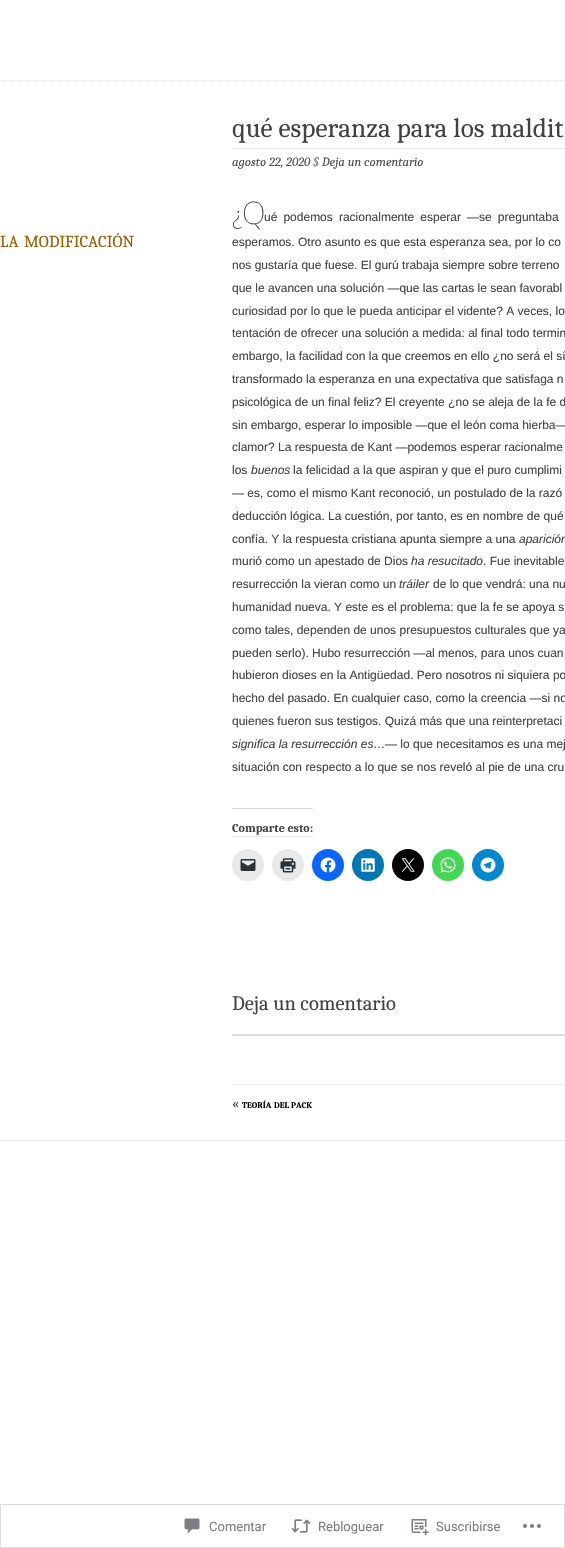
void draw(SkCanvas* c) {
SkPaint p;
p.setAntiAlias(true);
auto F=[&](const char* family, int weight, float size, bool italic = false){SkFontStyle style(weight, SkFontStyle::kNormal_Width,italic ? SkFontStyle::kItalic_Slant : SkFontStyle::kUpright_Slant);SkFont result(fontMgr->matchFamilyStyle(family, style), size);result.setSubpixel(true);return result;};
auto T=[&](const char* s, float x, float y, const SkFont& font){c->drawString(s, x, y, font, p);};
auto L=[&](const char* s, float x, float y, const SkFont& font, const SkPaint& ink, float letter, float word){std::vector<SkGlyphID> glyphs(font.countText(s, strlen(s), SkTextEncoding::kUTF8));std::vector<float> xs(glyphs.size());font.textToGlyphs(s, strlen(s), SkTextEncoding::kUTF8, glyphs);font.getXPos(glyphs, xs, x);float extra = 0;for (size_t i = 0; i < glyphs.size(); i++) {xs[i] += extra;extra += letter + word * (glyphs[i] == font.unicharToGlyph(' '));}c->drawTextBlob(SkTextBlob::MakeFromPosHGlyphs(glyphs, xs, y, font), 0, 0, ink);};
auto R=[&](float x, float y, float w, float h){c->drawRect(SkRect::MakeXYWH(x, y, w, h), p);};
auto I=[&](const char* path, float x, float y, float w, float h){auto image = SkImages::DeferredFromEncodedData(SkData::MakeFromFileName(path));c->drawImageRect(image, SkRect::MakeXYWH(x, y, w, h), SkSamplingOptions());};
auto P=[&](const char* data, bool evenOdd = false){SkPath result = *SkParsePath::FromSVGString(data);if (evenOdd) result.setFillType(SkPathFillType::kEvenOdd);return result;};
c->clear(0xffffffff);
p.setStroke(true);
p.setStrokeWidth(1);
p.setColor(0xffe5e5e5);
p.setPathEffect(SkDashPathEffect::Make({{1,1}}, 0));
c->drawPath(P("M0 80.5h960"),p);
p.setPathEffect(nullptr);
auto f1 = F("Caladea",400,16.75);
p.setStroke(false);
p.setColor(0xff9e5e00);
T("LA",0,247,f1);
T("MODIFICACIÓN",24,247,f1);
p.setColor(0xffe5e5e5);
R(232,148,333,1);
auto f2 = F("Caladea",400,27.25);
p.setColor(0xff424242);
T("qué esperanza para los maldit",232,137,f2);
auto f3 = F("Caladea",400,12.75,true);
p.setColor(0xff4f4f4f);
T("agosto 22, 2020",232,166,f3);
p.setColor(0xff666666);
T("§",313,166,f3);
p.setColor(0xff4f4f4f);
T("Deja un comentario",322,166,f3);
auto f4 = F("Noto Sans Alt",100,31);
p.setColor(0xff424242);
T("¿Q",232,224,f4);
auto f5 = F("Liberation Sans",400,12);
L("ué podemos racionalmente esperar —se preguntaba",264,221,f5,p,0,2.75);
T("esperamos. Otro asunto es que esta esperanza sea, por lo co",232,246,f5);
T("nos gustaría que fuese. El gurú trabaja siempre sobre terreno",232,269,f5);
T("que le avancen una solución —que las cartas le sean favorabl",232,292,f5);
T("curiosidad por lo que le pueda anticipar el vidente? A veces, lo",232,315,f5);
T("tentación de ofrecer una solución a medida: al final todo termin",232,337,f5);
T("embargo, la facilidad con la que creemos en ello ¿no será el sí",232,360,f5);
T("transformado la esperanza en una expectativa que satisfaga n",232,383,f5);
T("psicológica de un final feliz? El creyente ¿no se aleja de la fe d",232,406,f5);
T("sin embargo, esperar lo imposible —que el león coma hierba—",232,429,f5);
T("clamor? La respuesta de Kant —podemos esperar racionalme",232,451,f5);
T("los",232,474,f5);
auto f6 = F("Liberation Sans",400,12,true);
T("buenos",251,474,f6);
T("la felicidad a la que aspiran y que el puro cumplimi",293,474,f5);
T("— es, como el mismo Kant reconoció, un postulado de la razó",232,497,f5);
T("deducción lógica. La cuestión, por tanto, es en nombre de qué",232,520,f5);
T("confía. Y la respuesta cristiana apunta siempre a una",232,543,f5);
T("aparición",519,543,f6);
T("murió como un apestado de Dios",232,565,f5);
T("ha resucitado",411,565,f6);
T(". Fue inevitable",483,565,f5);
T("resurrección la vieran como un",232,588,f5);
T("tráiler",399,588,f6);
T("de lo que vendrá: una nu",433,588,f5);
T("humanidad nueva. Y este es el problema: que la fe se apoya s",232,611,f5);
T("como tales, dependen de unos presupuestos culturales que ya",232,634,f5);
T("pueden serlo). Hubo resurrección —al menos, para unos cuan",232,657,f5);
T("hubieron dioses en la Antigüedad. Pero nosotros ni siquiera po",232,679,f5);
T("hecho del pasado. En cualquier caso, como la creencia —si no",232,702,f5);
T("quienes fueron sus testigos. Quizá más que una reinterpretaci",232,725,f5);
T("significa la resurrección es",232,748,f6);
T("…— lo que necesitamos es una mej",373,748,f5);
T("situación con respecto a lo que se nos reveló al pie de una cru",232,771,f5);
p.setColor(0xffe5e5e5);
R(232,836,81,1);
p.setColor(0xffdcdcde);
R(232,808,81,1);
auto f7 = F("Caladea",700,12);
p.setColor(0xff424242);
T("Comparte esto:",232,832,f7);
p.setColor(0xffe9e9e9);
c->drawCircle(248,865,16,p);
I("1.png",240,859,16,12);
c->drawCircle(288,865,16,p);
I("2.png",280,858,16,15);
p.setColor(0xff0866ff);
c->drawCircle(328,865,16,p);
I("3.png",320,857,16,16);
p.setColor(0xff0077b5);
c->drawCircle(368,865,16,p);
I("4.png",361,858,14,14);
p.setColor(0xff000000);
c->drawCircle(408,865,16,p);
I("5.png",401,858,14,14);
p.setColor(0xff43d854);
c->drawCircle(448,865,16,p);
I("6.png",440,857,16,16);
p.setColor(0xff0088cc);
c->drawCircle(488,865,16,p);
I("7.png",480,857,16,16);
auto f8 = F("Caladea",400,20.5);
p.setColor(0xff424242);
T("Deja un comentario",232,1010,f8);
p.setColor(0xffdcdcde);
R(232,1034,333,2);
p.setColor(0xffeeeeee);
R(232,1084,333,1);
auto f9 = F("Caladea",400,14);
p.setColor(0xff424242);
T("«",232,1108,f9);
auto f10 = F("Caladea",700,8.5);
p.setColor(0xff000000);
T("TEORÍA",242,1108,f10);
T("DEL",274,1108,f10);
T("PACK",291,1108,f10);
p.setColor(0xffe5e5e5);
R(0,1140,565,1);
p.setStroke(true);
p.setColor(0xffdddddf);
c->drawRect(SkRect::MakeXYWH(.5,1504.5,564,43),p);
I("8.png",184,1518,16,16);
auto f11 = F("Roboto",400,13);
p.setStroke(false);
p.setColor(0xff7b7f85);
T("Comentar",209,1531,f11);
I("9.png",291,1519,20,14);
T("Rebloguear",318,1531,f11);
I("10.png",411,1519,18,17);
T("Suscribirse",436,1531,f11);
I("11.png",523,1524,18,4);
}
